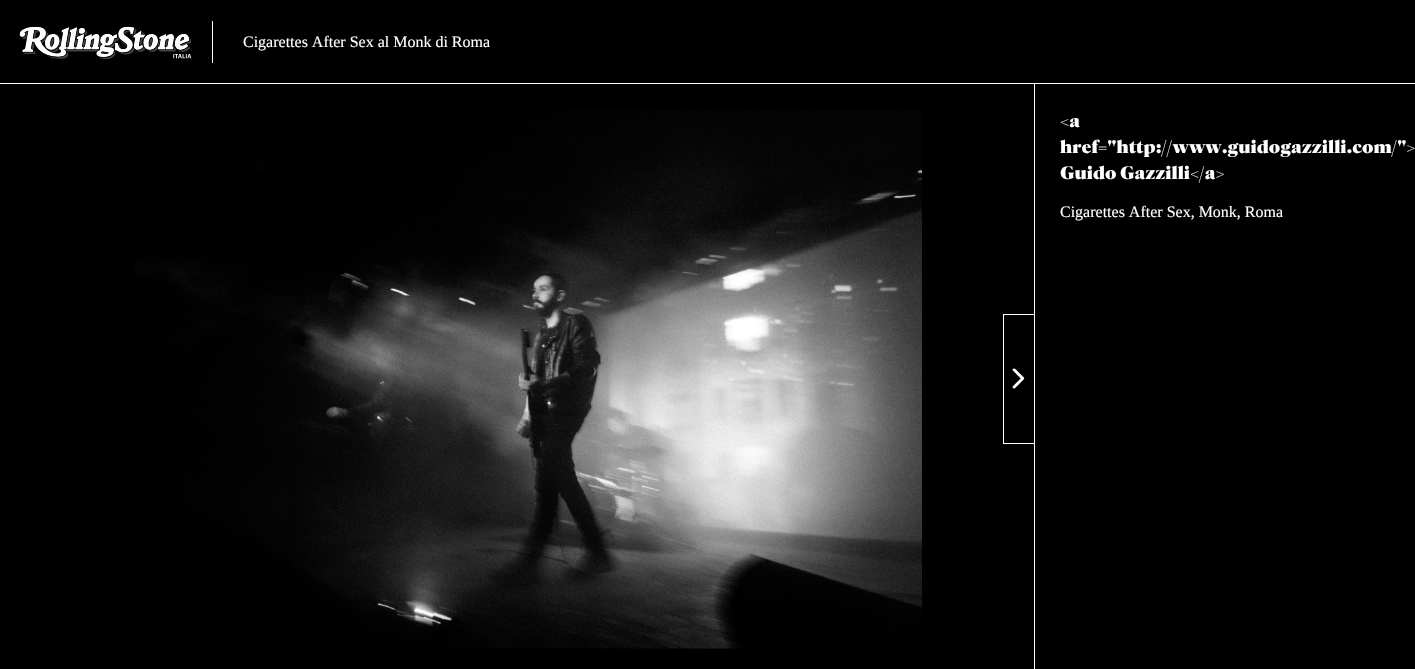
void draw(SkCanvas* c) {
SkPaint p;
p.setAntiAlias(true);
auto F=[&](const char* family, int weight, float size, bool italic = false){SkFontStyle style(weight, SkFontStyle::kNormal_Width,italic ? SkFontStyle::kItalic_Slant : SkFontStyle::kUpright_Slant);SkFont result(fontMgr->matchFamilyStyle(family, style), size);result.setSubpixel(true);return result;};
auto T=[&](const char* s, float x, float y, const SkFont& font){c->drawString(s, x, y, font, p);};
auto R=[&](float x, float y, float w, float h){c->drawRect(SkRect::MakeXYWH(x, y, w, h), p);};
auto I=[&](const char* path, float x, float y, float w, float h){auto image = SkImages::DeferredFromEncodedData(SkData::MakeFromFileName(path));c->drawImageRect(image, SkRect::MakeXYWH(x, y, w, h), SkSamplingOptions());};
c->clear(0xff000000);
I("1.png",19,26,173,33);
p.setColor(0xffffffff);
R(212,21,1,42);
auto f1 = F("Liberation Serif",400,16);
T("Cigarettes After Sex al Monk di Roma",243,47,f1);
R(1034,84,1,585);
I("2.png",135,110,787,539);
p.setStroke(true);
p.setStrokeWidth(1);
c->drawRect(SkRect::MakeXYWH(1003.5,314.5,31,129),p);
I("3.png",1012,368,13,21);
p.setStroke(false);
R(0,83,1415,1);
auto f2 = F("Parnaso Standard",900,17.6);
T("<a",1060,127,f2);
T("href=\"http://www.guidogazzilli.com/\">",1060,153,f2);
T("Guido Gazzilli</a>",1060,179,f2);
T("Cigarettes After Sex, Monk, Roma",1060,217,f1);
}
